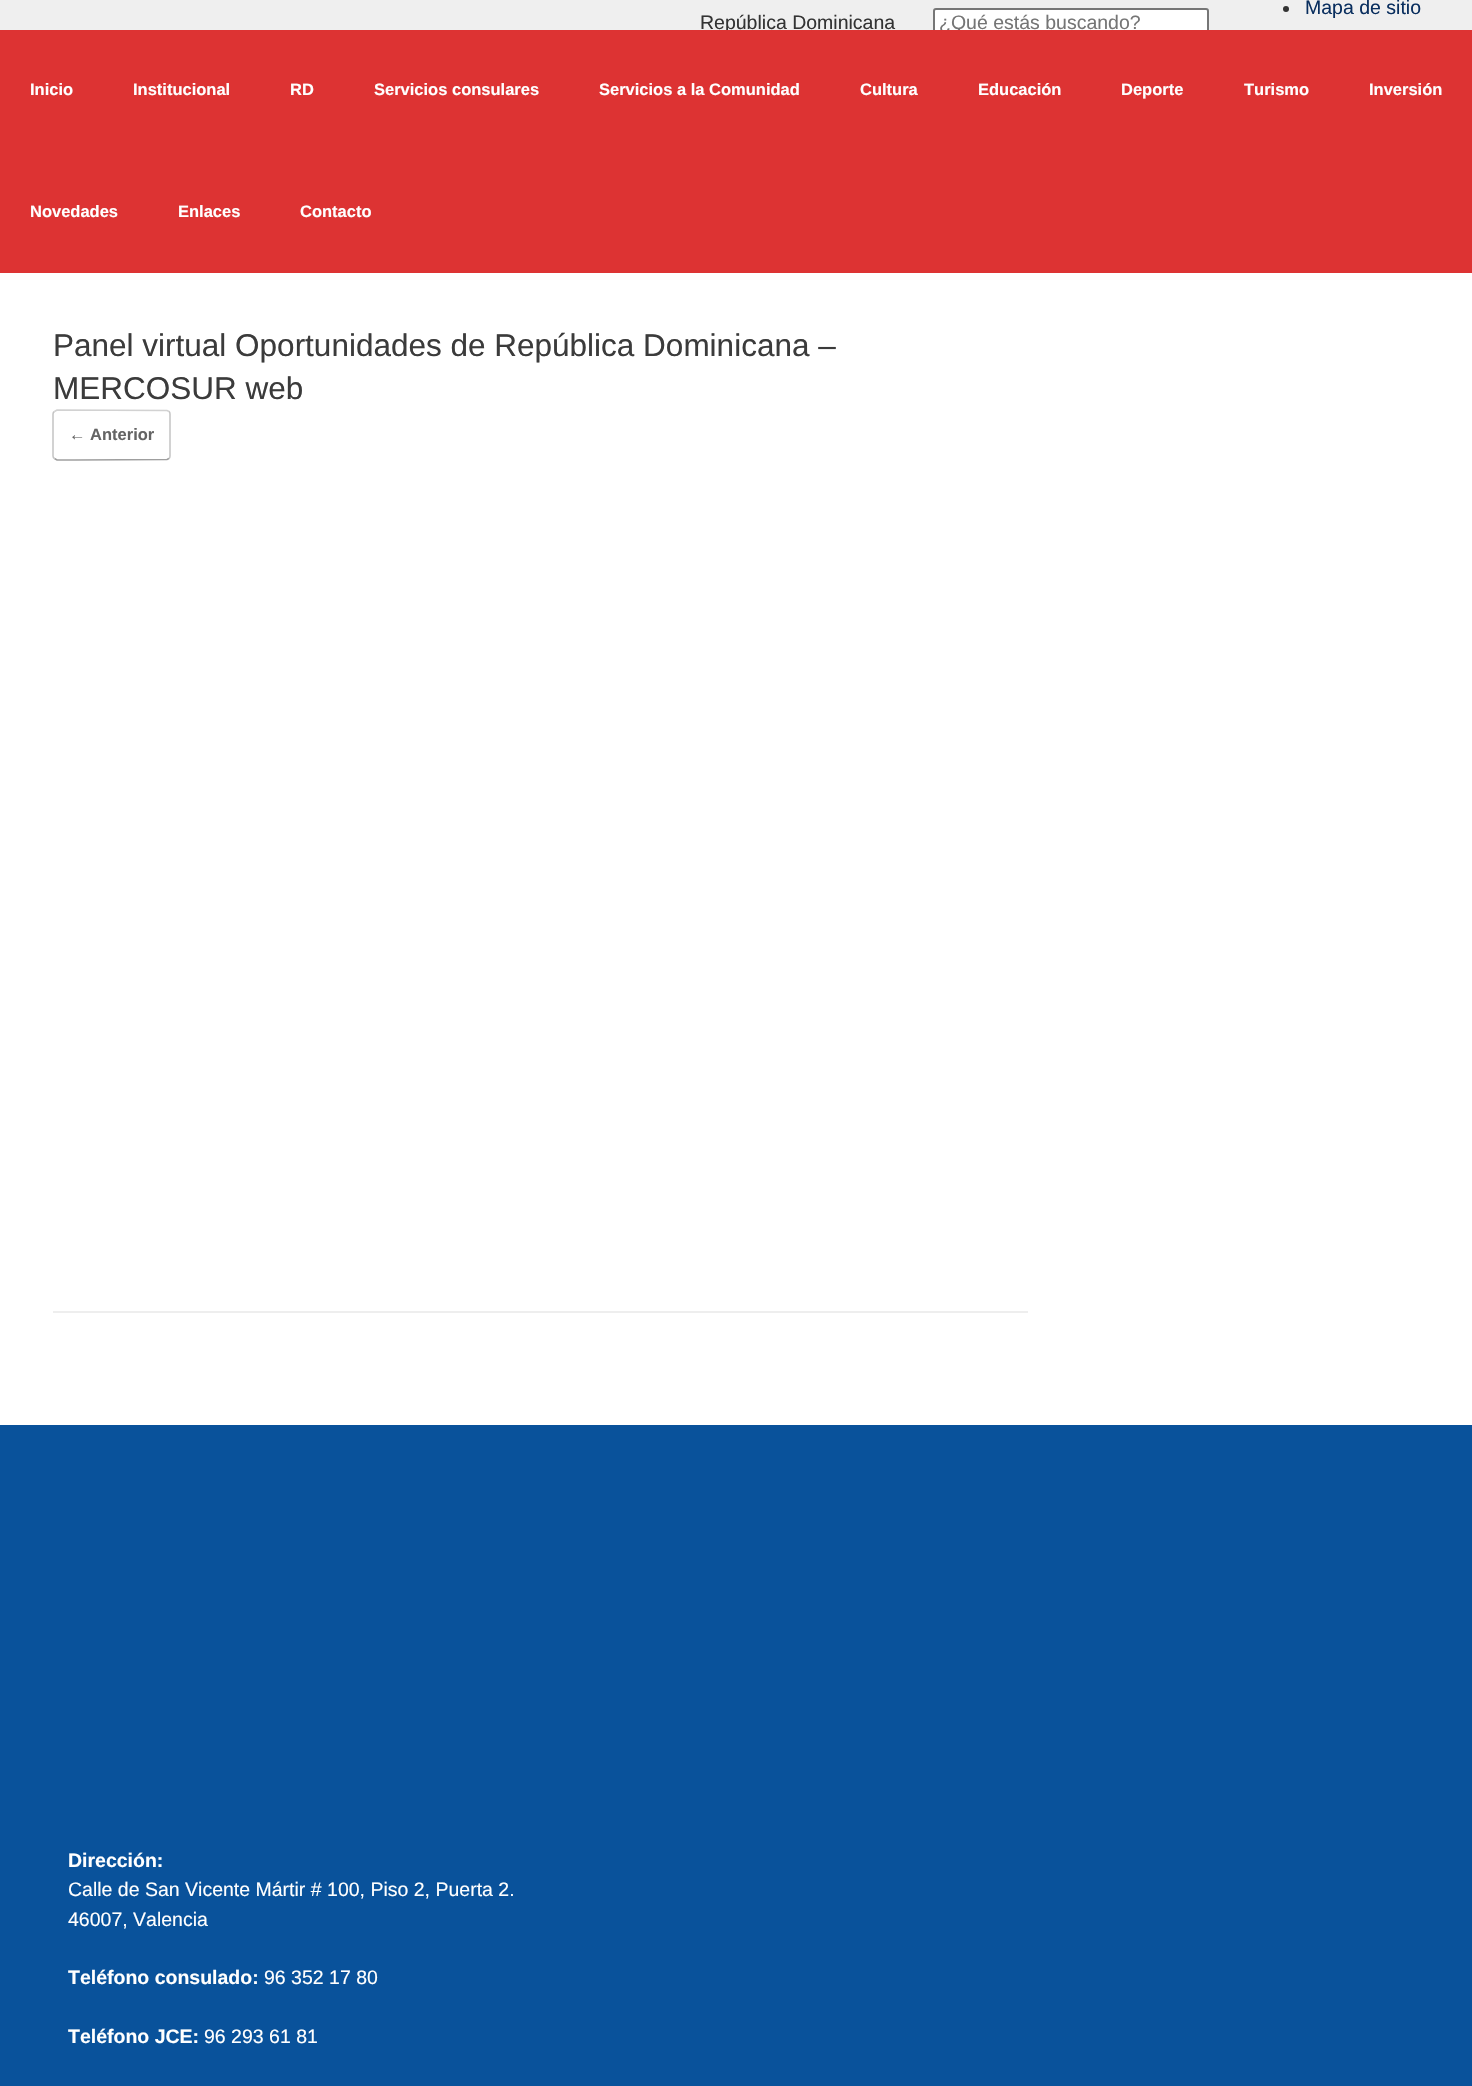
void draw(SkCanvas* c) {
SkPaint p;
p.setAntiAlias(true);
auto F=[&](const char* family, int weight, float size, bool italic = false){SkFontStyle style(weight, SkFontStyle::kNormal_Width,italic ? SkFontStyle::kItalic_Slant : SkFontStyle::kUpright_Slant);SkFont result(fontMgr->matchFamilyStyle(family, style), size);result.setSubpixel(true);return result;};
auto T=[&](const char* s, float x, float y, const SkFont& font){c->drawString(s, x, y, font, p);};
auto R=[&](float x, float y, float w, float h){c->drawRect(SkRect::MakeXYWH(x, y, w, h), p);};
auto P=[&](const char* data, bool evenOdd = false){SkPath result = *SkParsePath::FromSVGString(data);if (evenOdd) result.setFillType(SkPathFillType::kEvenOdd);return result;};
c->clear(0xff09529b);
p.setColor(0xffefefef);
R(0,0,1472,30);
p.setColor(0xff333333);
c->drawCircle(1286,9,3,p);
auto f1 = F("Liberation Sans",400,19.5);
p.setColor(0xff092e5e);
T("Mapa de sitio",1305,14,f1);
p.setColor(0xff333333);
T("República Dominicana",700,29,f1);
p.setColor(0xffffffff);
c->drawRoundRect(SkRect::MakeXYWH(934,9,274,29),2,2,p);
p.setStroke(true);
p.setStrokeWidth(2);
p.setColor(0xff767676);
c->drawRoundRect(SkRect::MakeXYWH(934,9,274,29),2,2,p);
p.setStroke(false);
p.setColor(0xff757575);
T("¿Qué estás buscando?",939,29,f1);
p.setColor(0xffdd3333);
R(0,30,1472,243);
auto f2 = F("Liberation Sans",700,16.5);
p.setColor(0xffffffff);
T("Inicio",30,95,f2);
T("Institucional",133,95,f2);
T("RD",290,95,f2);
T("Servicios consulares",374,95,f2);
T("Servicios a la Comunidad",599,95,f2);
T("Cultura",860,95,f2);
T("Educación",978,95,f2);
T("Deporte",1121,95,f2);
T("Turismo",1244,95,f2);
T("Inversión",1369,95,f2);
T("Novedades",30,217,f2);
T("Enlaces",178,217,f2);
T("Contacto",300,217,f2);
R(0,273,1472,1152);
p.setColor(0xffeeeeee);
R(53,1311,975,2);
auto f3 = F("Liberation Sans",400,31.5);
p.setColor(0xff3b3b3b);
T("Panel virtual Oportunidades de República Dominicana –",53,356,f3);
T("MERCOSUR web",53,399,f3);
p.setStroke(true);
p.setStrokeWidth(1.5);
p.setColor(0xffd2d2d2);
c->drawPath(P("M54.5 411.5l2.5-1.5l110 .5l2 1"),p);
p.setColor(0xffc3c3c3);
c->drawPath(P("M169 411.5c1 .5 1 1.5 1 2.5v42c0 1 0 2-1 2.5"),p);
p.setColor(0xff9f9f9f);
c->drawPath(P("M169 458.5l-2 1l-92 .5h-18l-2.5-1.5"),p);
p.setColor(0xffc3c3c3);
c->drawPath(P("M54.5 458.5c-1-.5-1.5-1.5-1.5-2.5v-42c0-1 .5-2 1.5-2.5"),p);
p.setStroke(false);
p.setColor(0xff646464);
T("← Anterior",69,440,f2);
auto f4 = F("Liberation Sans",700,19.5);
p.setColor(0xffffffff);
T("Dirección:",68,1867,f4);
T("Calle de San Vicente Mártir # 100, Piso 2, Puerta 2.",68,1896,f1);
T("46007, Valencia",68,1926,f1);
T("Teléfono consulado:",68,1984,f4);
T("96 352 17 80",264,1984,f1);
T("Teléfono JCE:",68,2043,f4);
T("96 293 61 81",204,2043,f1);
}
